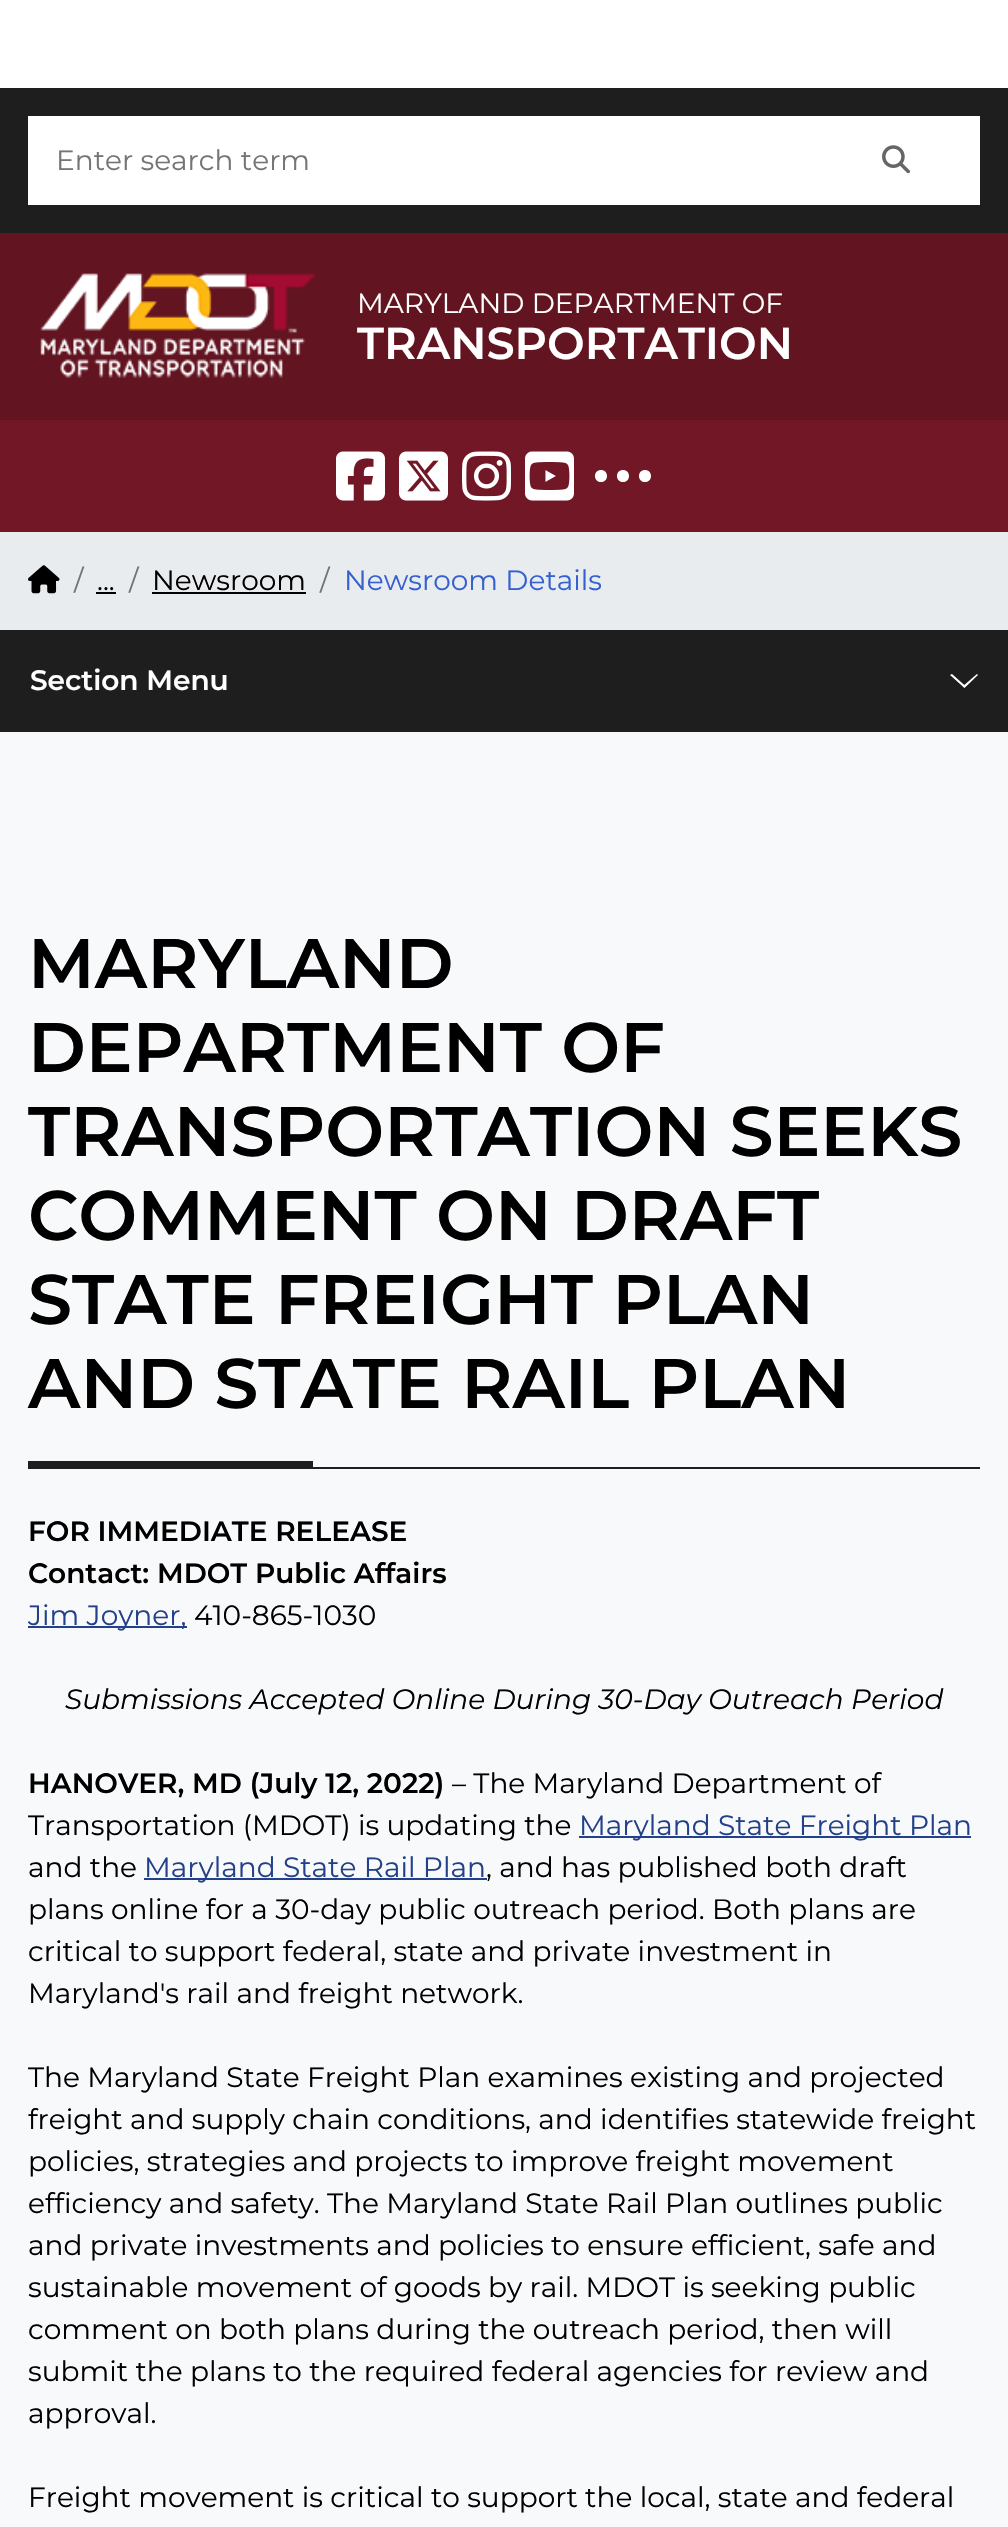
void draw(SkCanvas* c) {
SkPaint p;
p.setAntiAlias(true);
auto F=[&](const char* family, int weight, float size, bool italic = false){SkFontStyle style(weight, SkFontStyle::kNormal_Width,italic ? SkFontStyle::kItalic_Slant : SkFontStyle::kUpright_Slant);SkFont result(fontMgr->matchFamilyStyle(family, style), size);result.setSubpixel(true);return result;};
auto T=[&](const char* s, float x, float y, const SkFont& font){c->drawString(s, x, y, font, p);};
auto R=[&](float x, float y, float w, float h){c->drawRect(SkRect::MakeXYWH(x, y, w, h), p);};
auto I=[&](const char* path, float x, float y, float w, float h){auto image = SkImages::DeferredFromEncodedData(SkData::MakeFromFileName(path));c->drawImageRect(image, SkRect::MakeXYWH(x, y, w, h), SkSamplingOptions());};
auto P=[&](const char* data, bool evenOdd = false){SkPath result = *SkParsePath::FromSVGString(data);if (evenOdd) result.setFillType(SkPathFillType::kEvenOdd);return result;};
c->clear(0xfff8f9fa);
p.setColor(0xffffffff);
R(0,0,1008,88);
p.setColor(0xff1e1e1e);
R(0,88,1008,145);
p.setColor(0xffffffff);
R(28,116,952,89);
auto f1 = F("Montserrat",400,28);
p.setColor(0xff757575);
T("Enter search term",56,170,f1);
I("1.png",882,145,28,29);
p.setColor(0xff631421);
R(0,233,1008,187);
I("2.png",40,273,276,105);
p.setColor(0xffffffff);
T("MARYLAND DEPARTMENT OF",357,313,f1);
auto f2 = F("Montserrat",600,44.75);
T("TRANSPORTATION",357,359,f2);
p.setColor(0xff721726);
R(0,420,1008,112);
I("3.png",336,451,49,50);
I("4.png",399,451,49,50);
I("5.png",462,451,49,50);
I("6.png",525,451,49,50);
p.setColor(0xffffffff);
c->drawPath(P("M651 476c0-8-12-8-12 0c0 8 12 8 12 0zm-22 0c0-8-12-8-12 0c0 8 12 8 12 0zm-22 0c0-8-12-8-12 0c0 8 12 8 12 0z"),p);
p.setColor(0xffe9ecef);
R(0,532,1008,98);
I("7.png",28,565,32,29);
p.setColor(0xff6c757d);
T("/",74,590,f1);
p.setColor(0xff000000);
T("...",97,590,f1);
R(96,592,20,2);
p.setColor(0xff6c757d);
T("/",129,590,f1);
p.setColor(0xff000000);
T("Newsroom",152,590,f1);
R(152,592,154,2);
p.setColor(0xff6c757d);
T("/",320,590,f1);
p.setColor(0xff3460d0);
T("Newsroom Details",344,590,f1);
p.setColor(0xff1e1e1e);
R(0,630,1008,102);
auto f3 = F("Montserrat",600,28);
p.setColor(0xffffffff);
T("Section Menu",30,690,f3);
c->drawPath(P("M964.5 688l1.5-1.5l-14-12.5l-2 1zm-2-1.5l2 1.5l13.5-13l-1-1z"),p);
p.setColor(0xff1e1e1e);
R(28,1467,952,2);
auto f4 = F("Montserrat",600,70);
p.setColor(0xff000000);
T("MARYLAND",28,988,f4);
T("DEPARTMENT OF",28,1072,f4);
T("TRANSPORTATION SEEKS",28,1156,f4);
T("COMMENT ON DRAFT",28,1240,f4);
T("STATE FREIGHT PLAN",28,1324,f4);
T("AND STATE RAIL PLAN",28,1408,f4);
p.setColor(0xff1e1e1e);
R(28,1461,285,6);
p.setColor(0xff000000);
T("FOR IMMEDIATE RELEASE",28,1541,f3);
T("Contact: MDOT Public Affairs",28,1583,f3);
p.setColor(0xff23408a);
R(28,1626,159,2);
T("Jim Joyner,",28,1625,f1);
p.setColor(0xff000000);
T("410-865-1030",194,1625,f1);
auto f5 = F("Montserrat",100,28,true);
T("Submissions Accepted Online During 30-Day Outreach Period",65,1709,f5);
T("HANOVER, MD (July 12, 2022)",28,1793,f3);
T("– The Maryland Department of",452,1793,f1);
T("Transportation (MDOT) is updating the",28,1835,f1);
p.setColor(0xff23408a);
R(579,1836,392,2);
T("Maryland State Freight Plan",579,1835,f1);
p.setColor(0xff000000);
T("and the",28,1877,f1);
p.setColor(0xff23408a);
R(144,1878,343,2);
T("Maryland State Rail Plan",144,1877,f1);
p.setColor(0xff000000);
T(", and has published both draft",486,1877,f1);
T("plans online for a 30-day public outreach period. Both plans are",28,1919,f1);
T("critical to support federal, state and private investment in",28,1961,f1);
T("Maryland's rail and freight network.",28,2003,f1);
T("The Maryland State Freight Plan examines existing and projected",28,2087,f1);
T("freight and supply chain conditions, and identifies statewide freight",28,2129,f1);
T("policies, strategies and projects to improve freight movement",28,2171,f1);
T("efficiency and safety. The Maryland State Rail Plan outlines public",28,2213,f1);
T("and private investments and policies to ensure efficient, safe and",28,2255,f1);
T("sustainable movement of goods by rail. MDOT is seeking public",28,2297,f1);
T("comment on both plans during the outreach period, then will",28,2339,f1);
T("submit the plans to the required federal agencies for review and",28,2381,f1);
T("approval.",28,2423,f1);
T("Freight movement is critical to support the local, state and federal",28,2507,f1);
}
